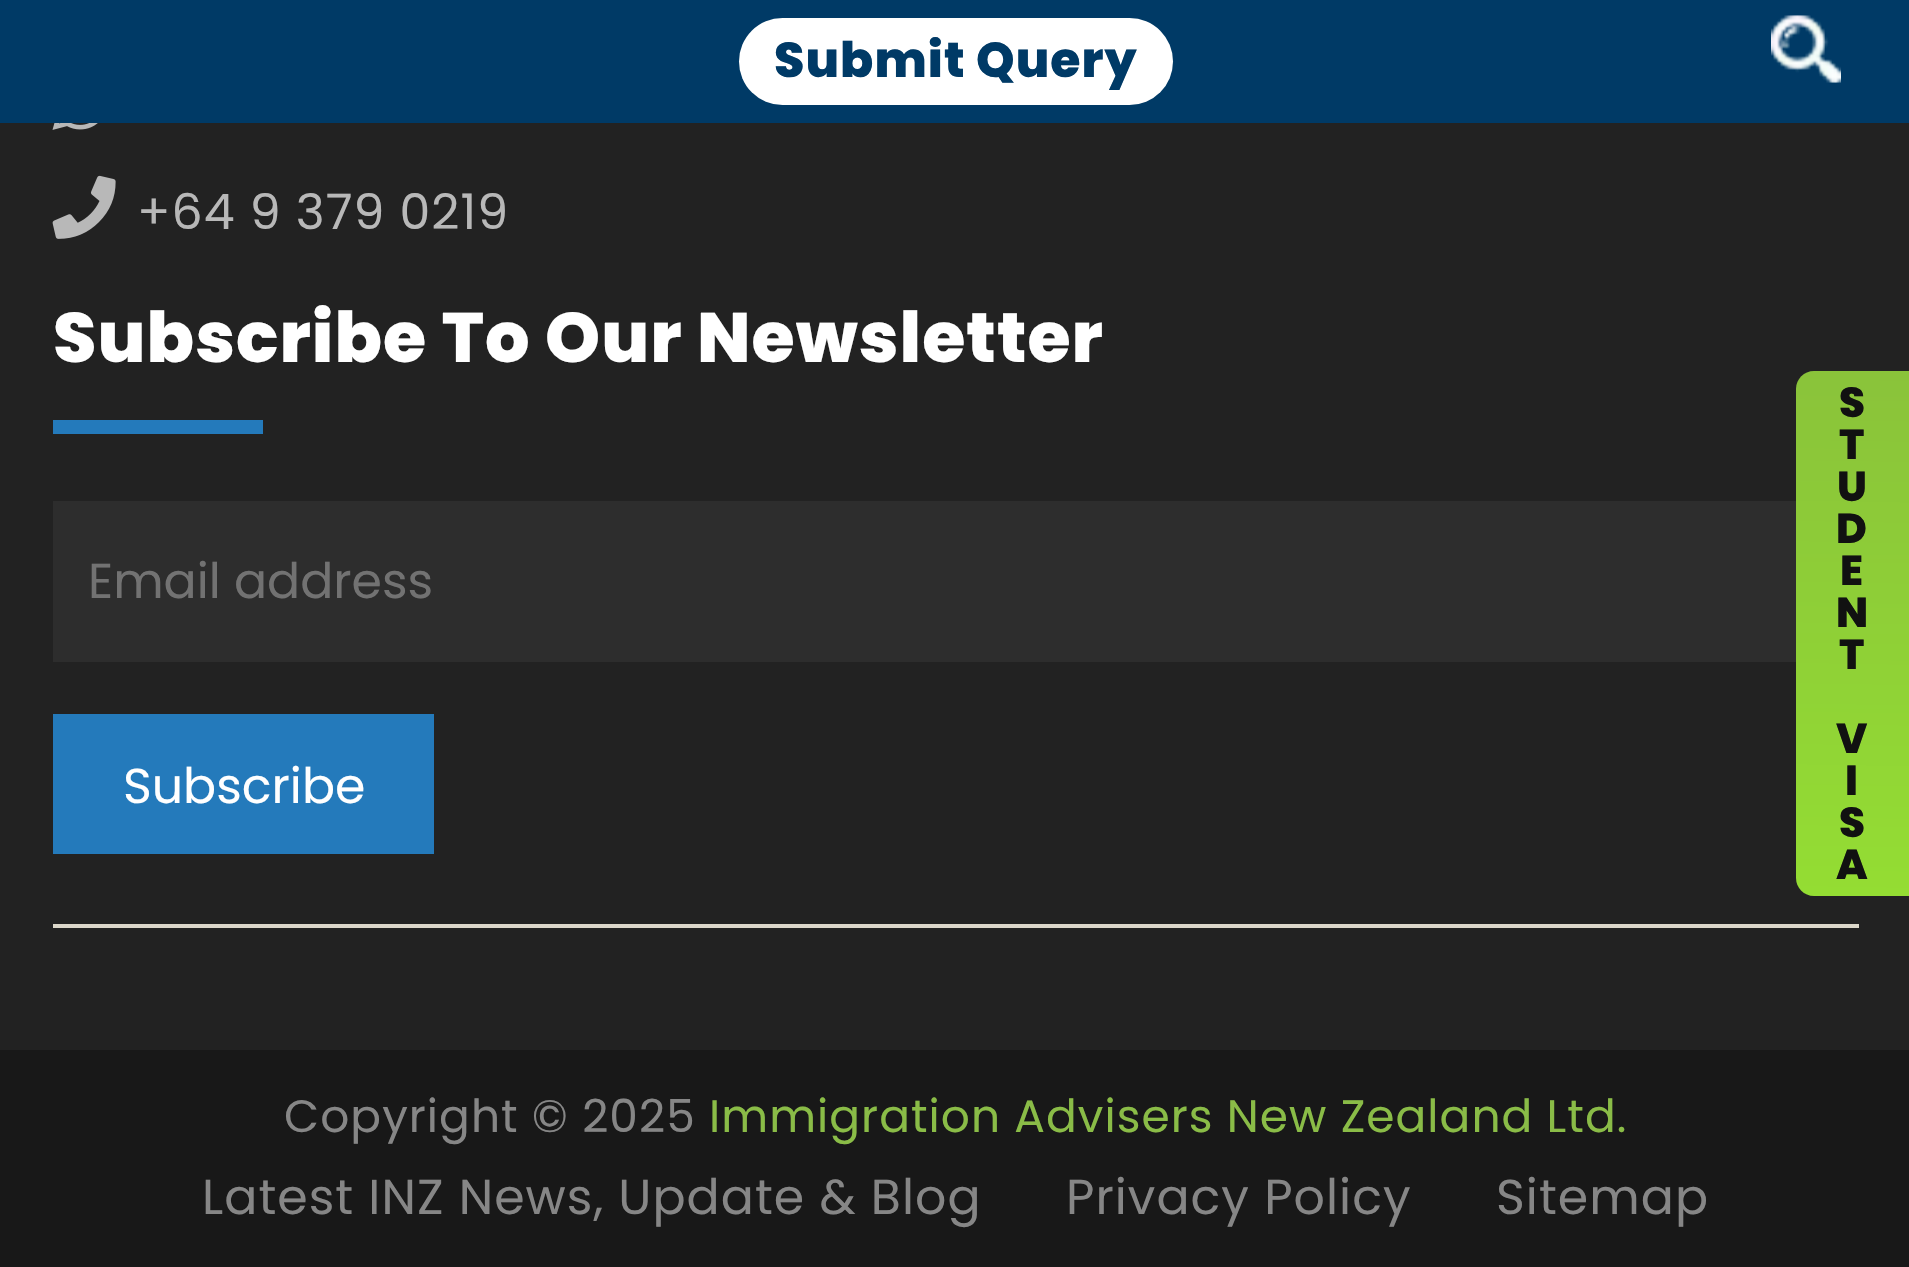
void draw(SkCanvas* c) {
SkPaint p;
p.setAntiAlias(true);
auto F=[&](const char* family, int weight, float size, bool italic = false){SkFontStyle style(weight, SkFontStyle::kNormal_Width,italic ? SkFontStyle::kItalic_Slant : SkFontStyle::kUpright_Slant);SkFont result(fontMgr->matchFamilyStyle(family, style), size);result.setSubpixel(true);return result;};
auto T=[&](const char* s, float x, float y, const SkFont& font){c->drawString(s, x, y, font, p);};
auto L=[&](const char* s, float x, float y, const SkFont& font, const SkPaint& ink, float letter, float word){std::vector<SkGlyphID> glyphs(font.countText(s, strlen(s), SkTextEncoding::kUTF8));std::vector<float> xs(glyphs.size());font.textToGlyphs(s, strlen(s), SkTextEncoding::kUTF8, glyphs);font.getXPos(glyphs, xs, x);float extra = 0;for (size_t i = 0; i < glyphs.size(); i++) {xs[i] += extra;extra += letter + word * (glyphs[i] == font.unicharToGlyph(' '));}c->drawTextBlob(SkTextBlob::MakeFromPosHGlyphs(glyphs, xs, y, font), 0, 0, ink);};
auto R=[&](float x, float y, float w, float h){c->drawRect(SkRect::MakeXYWH(x, y, w, h), p);};
auto Q=[&](float x, float y, float w, float h, float radius){c->drawRoundRect(SkRect::MakeXYWH(x, y, w, h), radius, radius, p);};
auto I=[&](const char* path, float x, float y, float w, float h){auto image = SkImages::DeferredFromEncodedData(SkData::MakeFromFileName(path));c->drawImageRect(image, SkRect::MakeXYWH(x, y, w, h), SkSamplingOptions());};
auto P=[&](const char* data, bool evenOdd = false){SkPath result = *SkParsePath::FromSVGString(data);if (evenOdd) result.setFillType(SkPathFillType::kEvenOdd);return result;};
c->clear(0xff222222);
p.setColor(0xff003a66);
R(0,0,1909,123);
p.setColor(0xffffffff);
Q(739,18,434,87,43.5);
auto f1 = F("Poppins",800,49);
p.setColor(0xff003a66);
L("Submit Query",774,77,f1,p,1.05,0);
I("1.png",1771,15,70,68);
I("2.png",1771,15,70,68);
I("3.png",52,123,46,7);
I("4.png",52,175,64,64);
auto f2 = F("Poppins",400,49);
p.setColor(0xffb8b8b8);
L("+64 9 379 0219",137,229,f2,p,1.05,0);
auto f3 = F("Poppins",800,70);
p.setColor(0xffffffff);
L("Subscribe To Our Newsletter",53,362,f3,p,1.05,0);
p.setColor(0xff247abb);
R(53,420,210,14);
p.setColor(0xff2d2d2d);
R(53,501,1743,161);
p.setColor(0xff727272);
T("Email address",88,598,f2);
p.setColor(0xff247abb);
R(53,714,381,140);
p.setColor(0xffffffff);
T("Subscribe",123,803,f2);
p.setColor(0xffdcd7ca);
R(53,924,1806,4);
p.setColor(0xff181818);
R(0,1050,1909,217);
auto f4 = F("Poppins",400,45.5);
p.setColor(0xff868686);
L("Copyright © 2025",284,1132,f4,p,1.05,0);
p.setColor(0xff8abc47);
L("Immigration Advisers New Zealand Ltd.",709,1132,f4,p,1.05,0);
p.setColor(0xff868686);
L("Latest INZ News, Update & Blog",202,1214,f2,p,1.05,0);
L("Privacy Policy",1066,1214,f2,p,1.05,0);
L("Sitemap",1496,1214,f2,p,1.05,0);
{
const SkColor colors[] = {0xff94dd33,0xff8ac33a};
const float stops[] = {0,1};
const SkPoint ends[] = {{1849,897}, {1858,370}};
p.setShader(SkGradientShader::MakeLinear(ends, colors, stops, 2, SkTileMode::kClamp));
p.setAlpha(255);
}
c->drawPath(P("M1814 371h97v525h-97c-10 0-18-8-18-18v-489c0-10 8-18 18-18z"),p);
auto f5 = F("Poppins",800,42);
p.setShader(nullptr);
p.setColor(0xff111111);
L("S",1839,417,f5,p,1.05,0);
L("T",1839,459,f5,p,1.05,0);
L("U",1837,501,f5,p,1.05,0);
L("D",1836,543,f5,p,1.05,0);
L("E",1840,585,f5,p,1.05,0);
L("N",1836,627,f5,p,1.05,0);
L("T",1839,669,f5,p,1.05,0);
L("V",1836,753,f5,p,1.05,0);
L("I",1845,795,f5,p,1.05,0);
L("S",1839,837,f5,p,1.05,0);
L("A",1836,879,f5,p,1.05,0);
}
